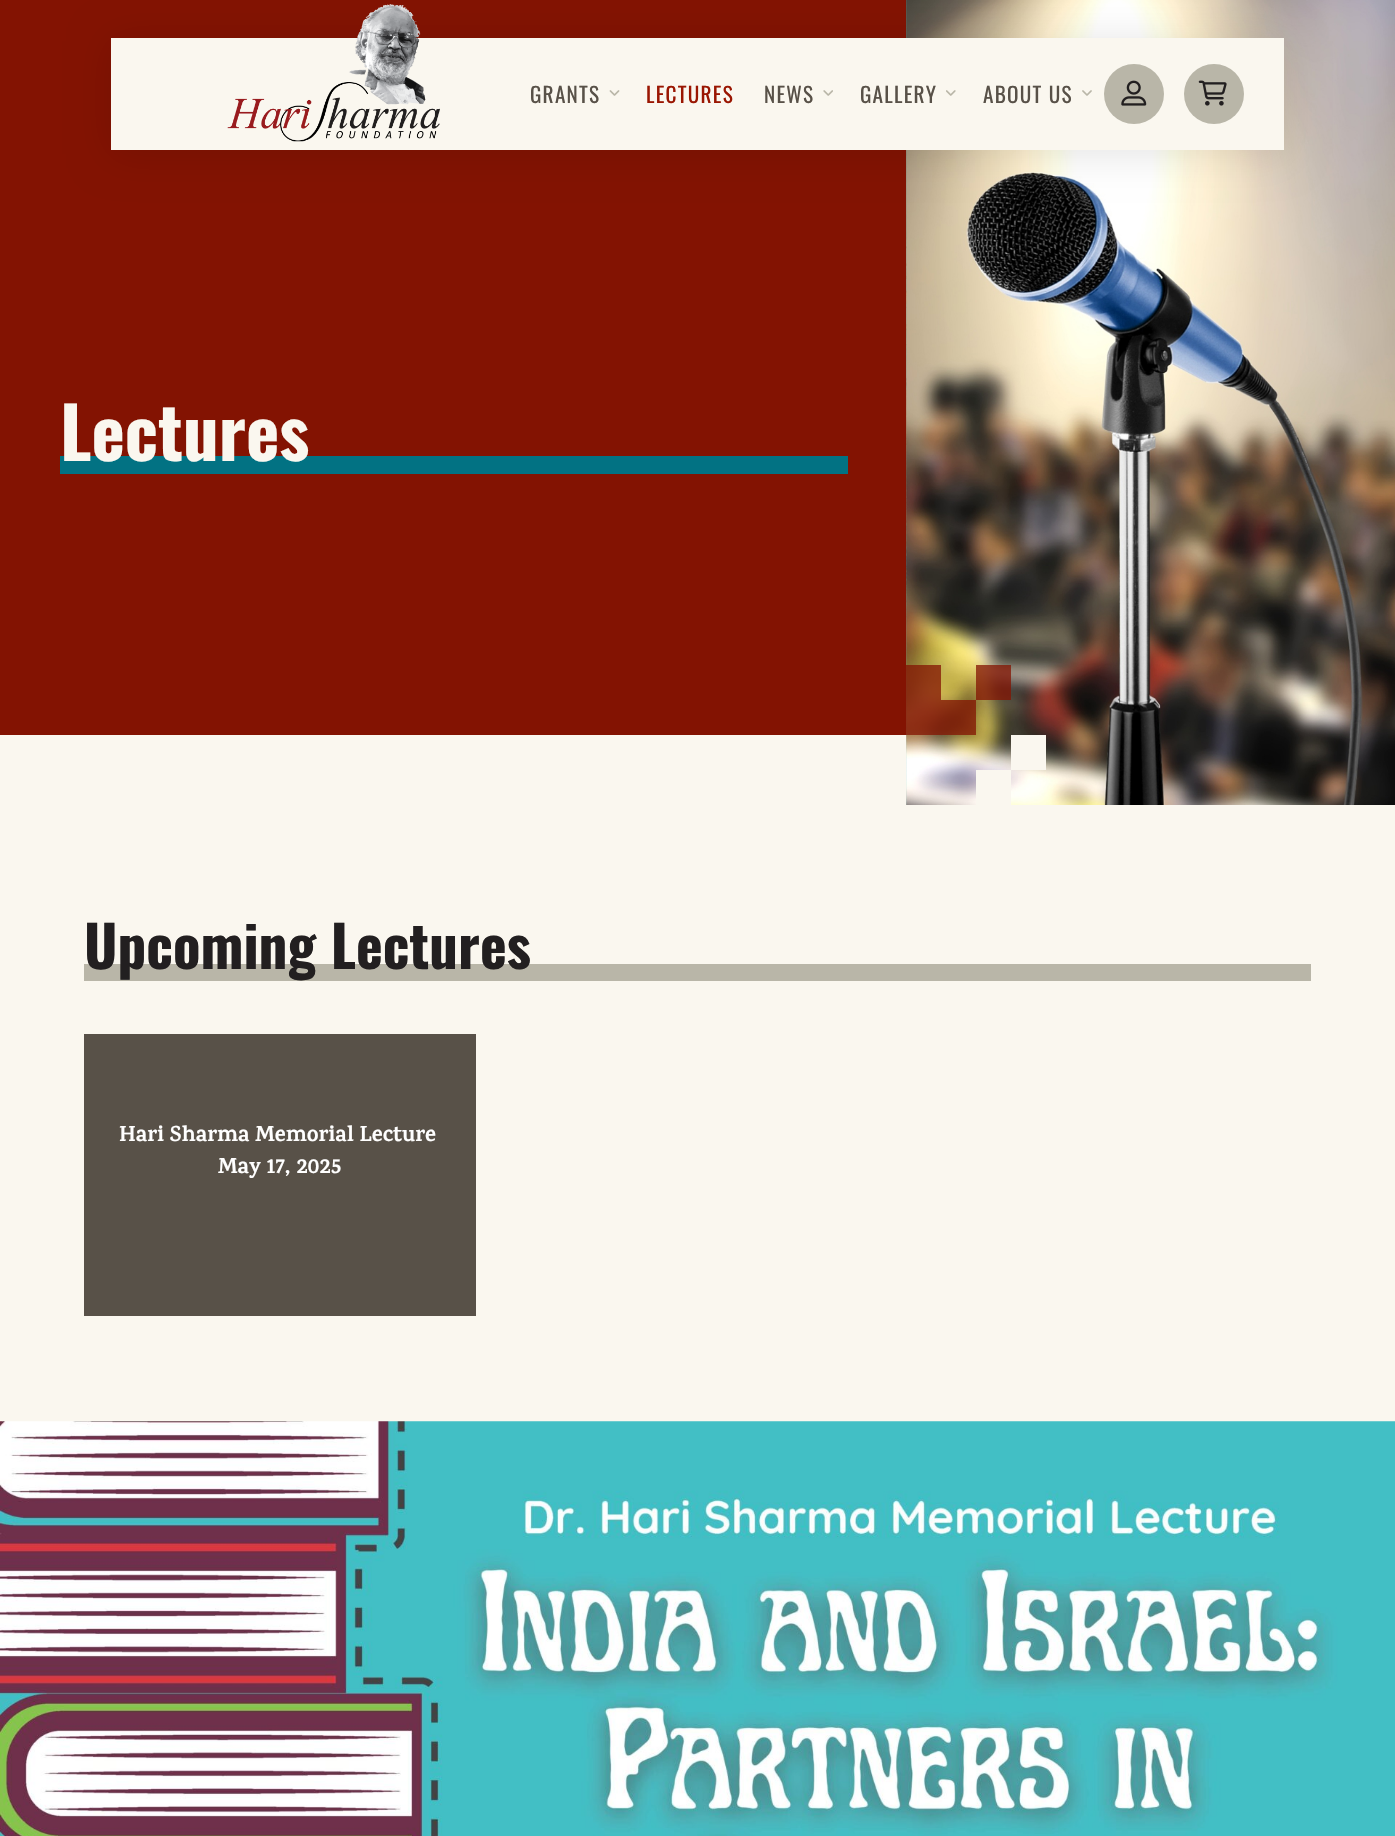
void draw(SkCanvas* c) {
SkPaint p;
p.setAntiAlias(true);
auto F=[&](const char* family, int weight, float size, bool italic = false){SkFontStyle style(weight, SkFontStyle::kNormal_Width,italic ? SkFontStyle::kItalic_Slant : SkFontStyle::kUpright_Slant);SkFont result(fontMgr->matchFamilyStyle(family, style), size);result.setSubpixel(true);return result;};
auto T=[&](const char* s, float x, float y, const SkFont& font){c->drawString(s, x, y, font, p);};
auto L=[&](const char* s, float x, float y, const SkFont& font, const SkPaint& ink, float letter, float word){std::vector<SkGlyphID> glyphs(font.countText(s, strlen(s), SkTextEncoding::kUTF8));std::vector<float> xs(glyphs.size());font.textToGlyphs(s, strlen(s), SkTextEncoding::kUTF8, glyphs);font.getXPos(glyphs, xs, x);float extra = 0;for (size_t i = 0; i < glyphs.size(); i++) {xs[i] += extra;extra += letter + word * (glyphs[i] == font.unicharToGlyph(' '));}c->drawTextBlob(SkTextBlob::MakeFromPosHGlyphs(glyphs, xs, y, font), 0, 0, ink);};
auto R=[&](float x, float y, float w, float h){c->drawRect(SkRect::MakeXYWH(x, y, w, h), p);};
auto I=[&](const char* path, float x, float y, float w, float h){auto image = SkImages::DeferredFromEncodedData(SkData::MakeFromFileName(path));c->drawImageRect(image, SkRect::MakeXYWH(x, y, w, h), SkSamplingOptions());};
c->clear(0xfffaf7ef);
p.setColor(0xff831302);
R(0,0,907,735);
I("8.png",906,0,1,805);
I("9.png",906,0,489,805);
p.setColor(0x1c000000);
p.setMaskFilter(SkMaskFilter::MakeBlur(kNormal_SkBlurStyle, 20));
c->drawRect(SkRect::MakeXYWH(111,41,1173,113),p);
p.setMaskFilter(nullptr);
p.setColor(0xfffaf7ef);
R(111,38,1173,112);
I("1.png",227,4,213,138);
auto f1 = F("Oswald",400,21.25);
p.setColor(0xff585148);
L("GRANTS",530,103,f1,p,1.25,0);
I("2.png",609,90,11,6);
p.setColor(0xff9a1602);
L("LECTURES",646,103,f1,p,1.25,0);
p.setColor(0xff585148);
L("NEWS",764,103,f1,p,1.25,0);
I("3.png",823,90,10,6);
L("GALLERY",860,103,f1,p,1.25,0);
I("4.png",946,90,10,6);
L("ABOUT US",983,103,f1,p,1.25,0);
I("5.png",1082,90,10,6);
p.setColor(0xffb9b6a8);
c->drawCircle(1134,94,30,p);
I("6.png",1121,80,26,26);
c->drawCircle(1214,94,30,p);
I("7.png",1198,80,29,26);
p.setColor(0xff027283);
R(60,456,788,18);
auto f2 = F("Oswald",700,71);
p.setColor(0xfffaf7ef);
T("Lectures",60,461,f2);
p.setColor(0xbf831302);
R(906,665,35,35);
R(976,665,35,35);
R(906,700,70,35);
p.setColor(0xfffaf7ef);
R(1011,735,35,35);
R(976,770,35,35);
p.setColor(0xffb9b6a8);
R(84,964,1227,17);
auto f3 = F("Oswald",700,57);
p.setColor(0xff221f20);
T("Upcoming Lectures",84,969,f3);
p.setColor(0xff585148);
R(84,1034,392,282);
auto f4 = F("Karma",700,21.9);
p.setColor(0xffffffff);
T("Hari Sharma Memorial Lecture",119,1141,f4);
T("May 17, 2025",218,1173,f4);
I("10.png",0,1421,1395,415);
}
